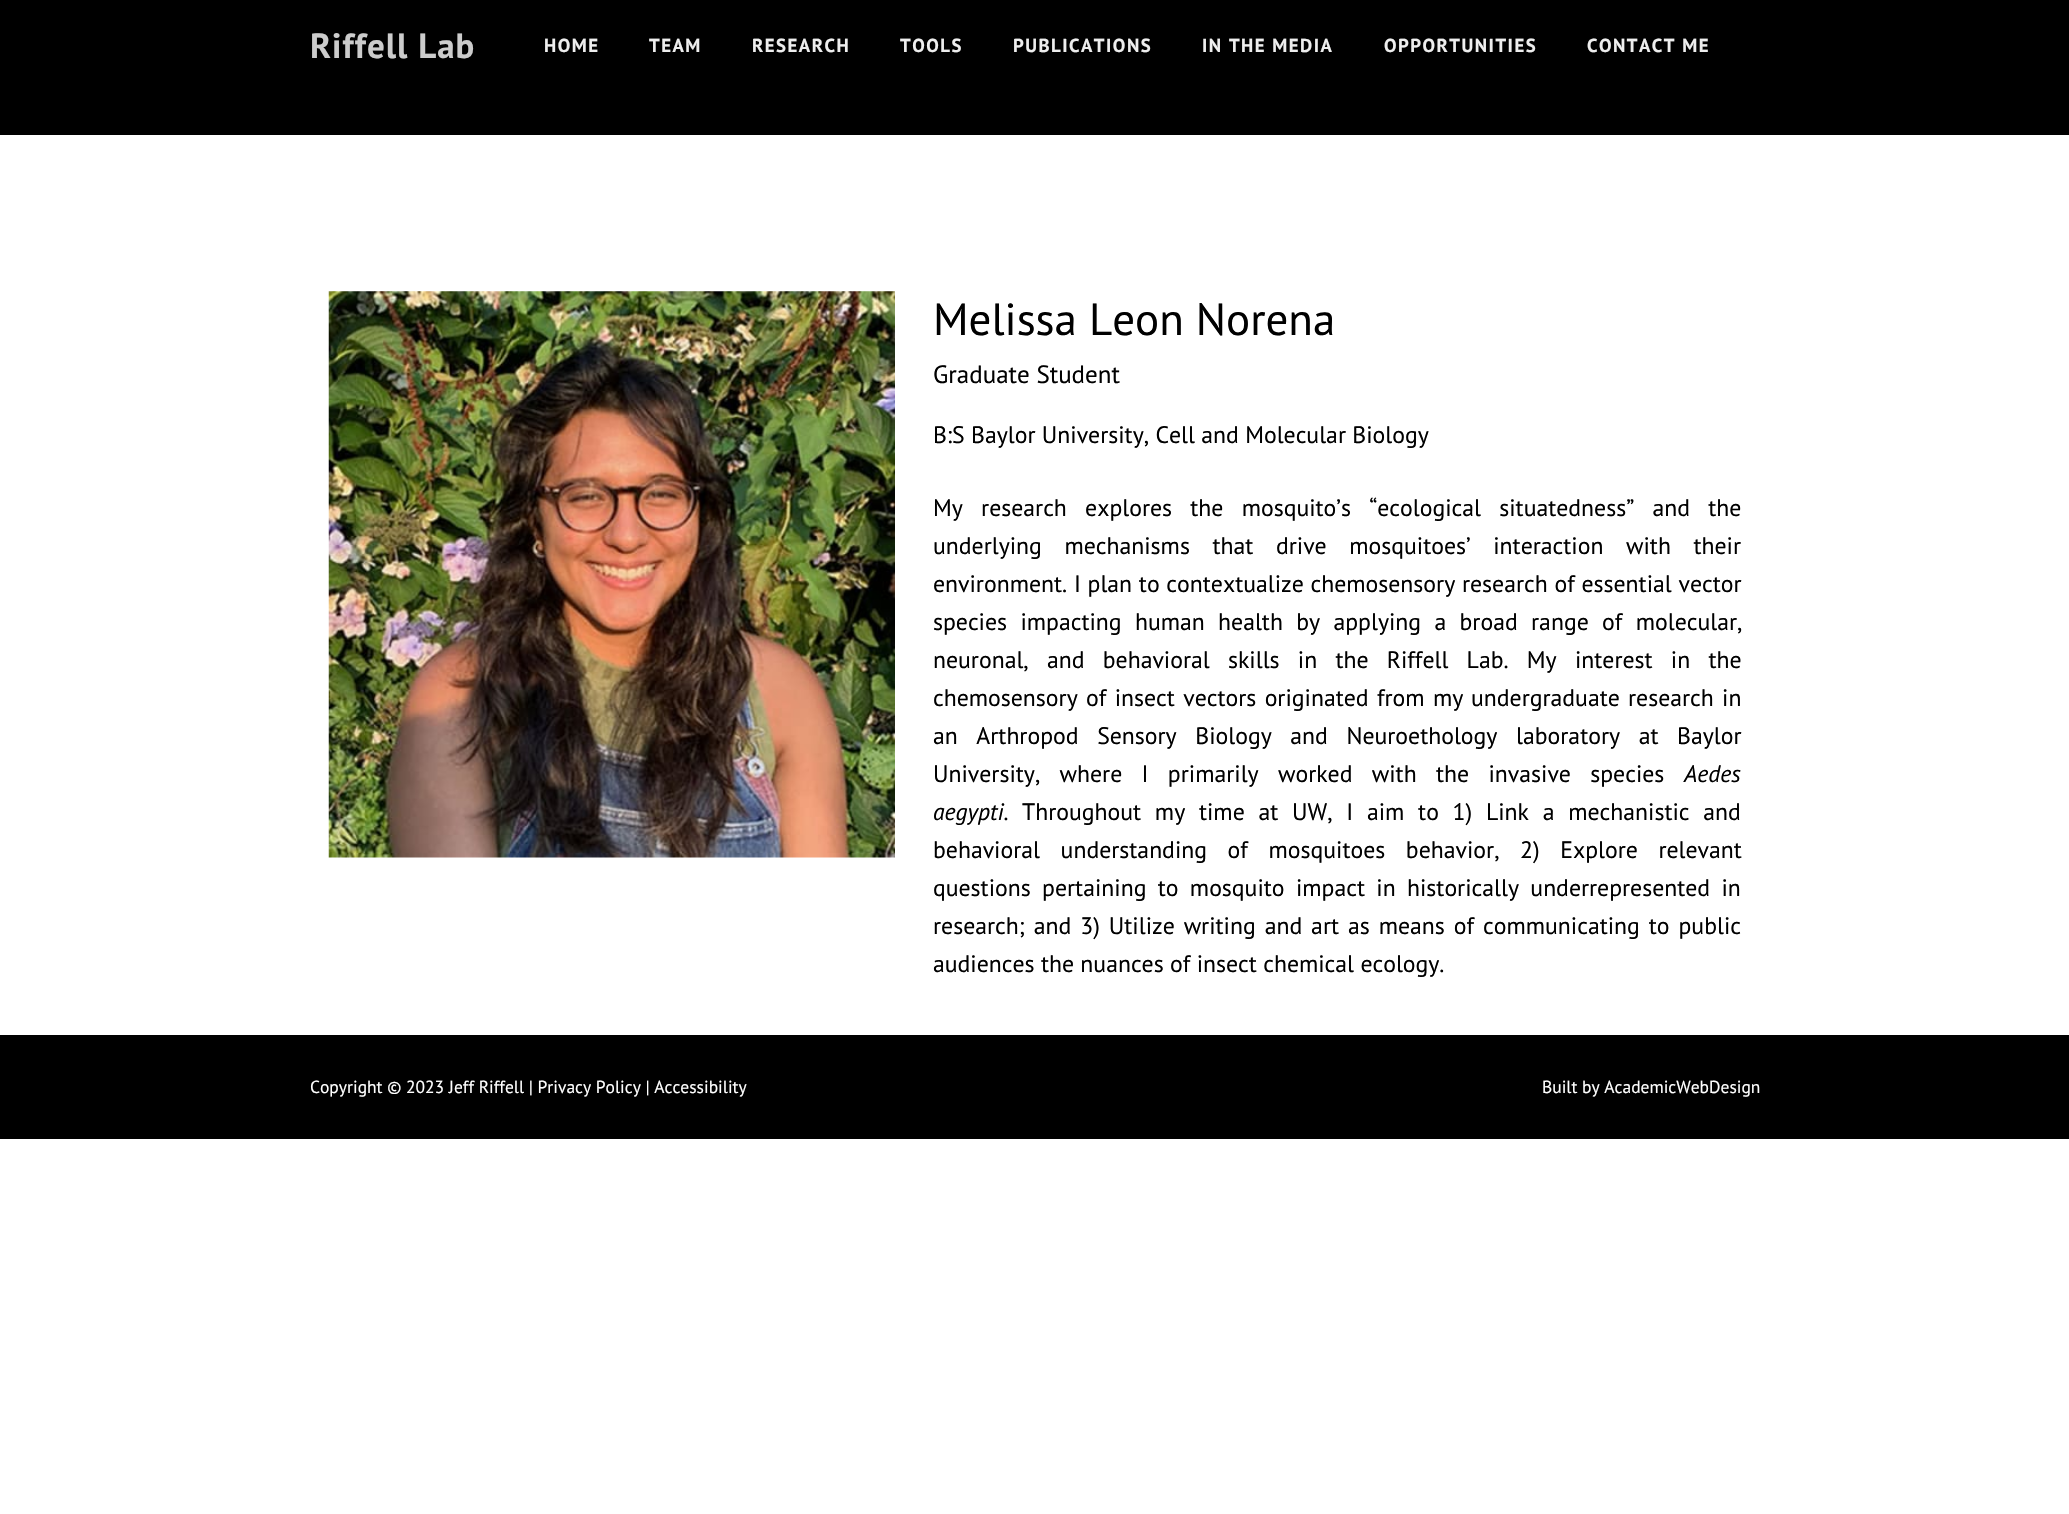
void draw(SkCanvas* c) {
SkPaint p;
p.setAntiAlias(true);
auto F=[&](const char* family, int weight, float size, bool italic = false){SkFontStyle style(weight, SkFontStyle::kNormal_Width,italic ? SkFontStyle::kItalic_Slant : SkFontStyle::kUpright_Slant);SkFont result(fontMgr->matchFamilyStyle(family, style), size);result.setSubpixel(true);return result;};
auto T=[&](const char* s, float x, float y, const SkFont& font){c->drawString(s, x, y, font, p);};
auto L=[&](const char* s, float x, float y, const SkFont& font, const SkPaint& ink, float letter, float word){std::vector<SkGlyphID> glyphs(font.countText(s, strlen(s), SkTextEncoding::kUTF8));std::vector<float> xs(glyphs.size());font.textToGlyphs(s, strlen(s), SkTextEncoding::kUTF8, glyphs);font.getXPos(glyphs, xs, x);float extra = 0;for (size_t i = 0; i < glyphs.size(); i++) {xs[i] += extra;extra += letter + word * (glyphs[i] == font.unicharToGlyph(' '));}c->drawTextBlob(SkTextBlob::MakeFromPosHGlyphs(glyphs, xs, y, font), 0, 0, ink);};
auto R=[&](float x, float y, float w, float h){c->drawRect(SkRect::MakeXYWH(x, y, w, h), p);};
auto I=[&](const char* path, float x, float y, float w, float h){auto image = SkImages::DeferredFromEncodedData(SkData::MakeFromFileName(path));c->drawImageRect(image, SkRect::MakeXYWH(x, y, w, h), SkSamplingOptions());};
c->clear(0xffffffff);
p.setColor(0xff000000);
R(0,0,2069,135);
auto f1 = F("PT Sans",700,35);
p.setColor(0xffcccccc);
L("Riffell Lab",310,58,f1,p,1,0);
auto f2 = F("PT Sans",700,18.75);
p.setColor(0xffeeeeee);
L("HOME",544,52,f2,p,1.5,0);
L("TEAM",649,52,f2,p,1.5,0);
L("RESEARCH",752,52,f2,p,1.5,0);
L("TOOLS",900,52,f2,p,1.5,0);
L("PUBLICATIONS",1013,52,f2,p,1.5,0);
L("IN THE MEDIA",1202,52,f2,p,1.5,0);
L("OPPORTUNITIES",1384,52,f2,p,1.5,0);
L("CONTACT ME",1587,52,f2,p,1.5,0);
I("1.png",328,291,567,567);
auto f3 = F("PT Sans",400,45);
p.setColor(0xff000000);
T("Melissa Leon Norena",933,335,f3);
auto f4 = F("PT Sans",400,25);
T("Graduate Student",933,383,f4);
auto f5 = F("PT Sans",400,23.75);
T("B:S Baylor University, Cell and Molecular Biology",933,443,f5);
L("My research explores the mosquito’s “ecological situatedness” and the",933,516,f5,p,0,11.9);
L("underlying mechanisms that drive mosquitoes’ interaction with their",933,554,f5,p,0,16.25);
L("environment. I plan to contextualize chemosensory research of essential vector",933,592,f5,p,0,.4);
L("species impacting human health by applying a broad range of molecular,",933,630,f5,p,0,7);
L("neuronal, and behavioral skills in the Riffell Lab. My interest in the",933,668,f5,p,0,11.9);
L("chemosensory of insect vectors originated from my",933,706,f5,p,0,2);
T("undergraduate",1471,706,f5);
L("research in",1628,706,f5,p,0,2);
L("an Arthropod Sensory Biology and Neuroethology laboratory at Baylor",933,744,f5,p,0,12.25);
L("University, where I primarily worked with the invasive species",933,782,f5,p,0,13);
auto f6 = F("PT Sans",400,23.75,true);
T("Aedes",1684,782,f6);
T("aegypti.",933,820,f6);
L("Throughout my time at UW, I aim to 1) Link a mechanistic and",1022,820,f5,p,0,7.4);
L("behavioral understanding of mosquitoes behavior, 2) Explore relevant",933,858,f5,p,0,14.25);
L("questions pertaining to mosquito impact in historically underrepresented in",933,896,f5,p,0,5);
L("research; and 3) Utilize writing and art as means of communicating to public",933,934,f5,p,0,2.6);
T("audiences the nuances of insect chemical ecology.",933,972,f5);
R(0,1035,2069,104);
auto f7 = F("PT Sans",400,17.5);
p.setColor(0xffffffff);
T("Copyright © 2023 Jeff Riffell | Privacy Policy | Accessibility",310,1093,f7);
T("Built by AcademicWebDesign",1542,1093,f7);
}
